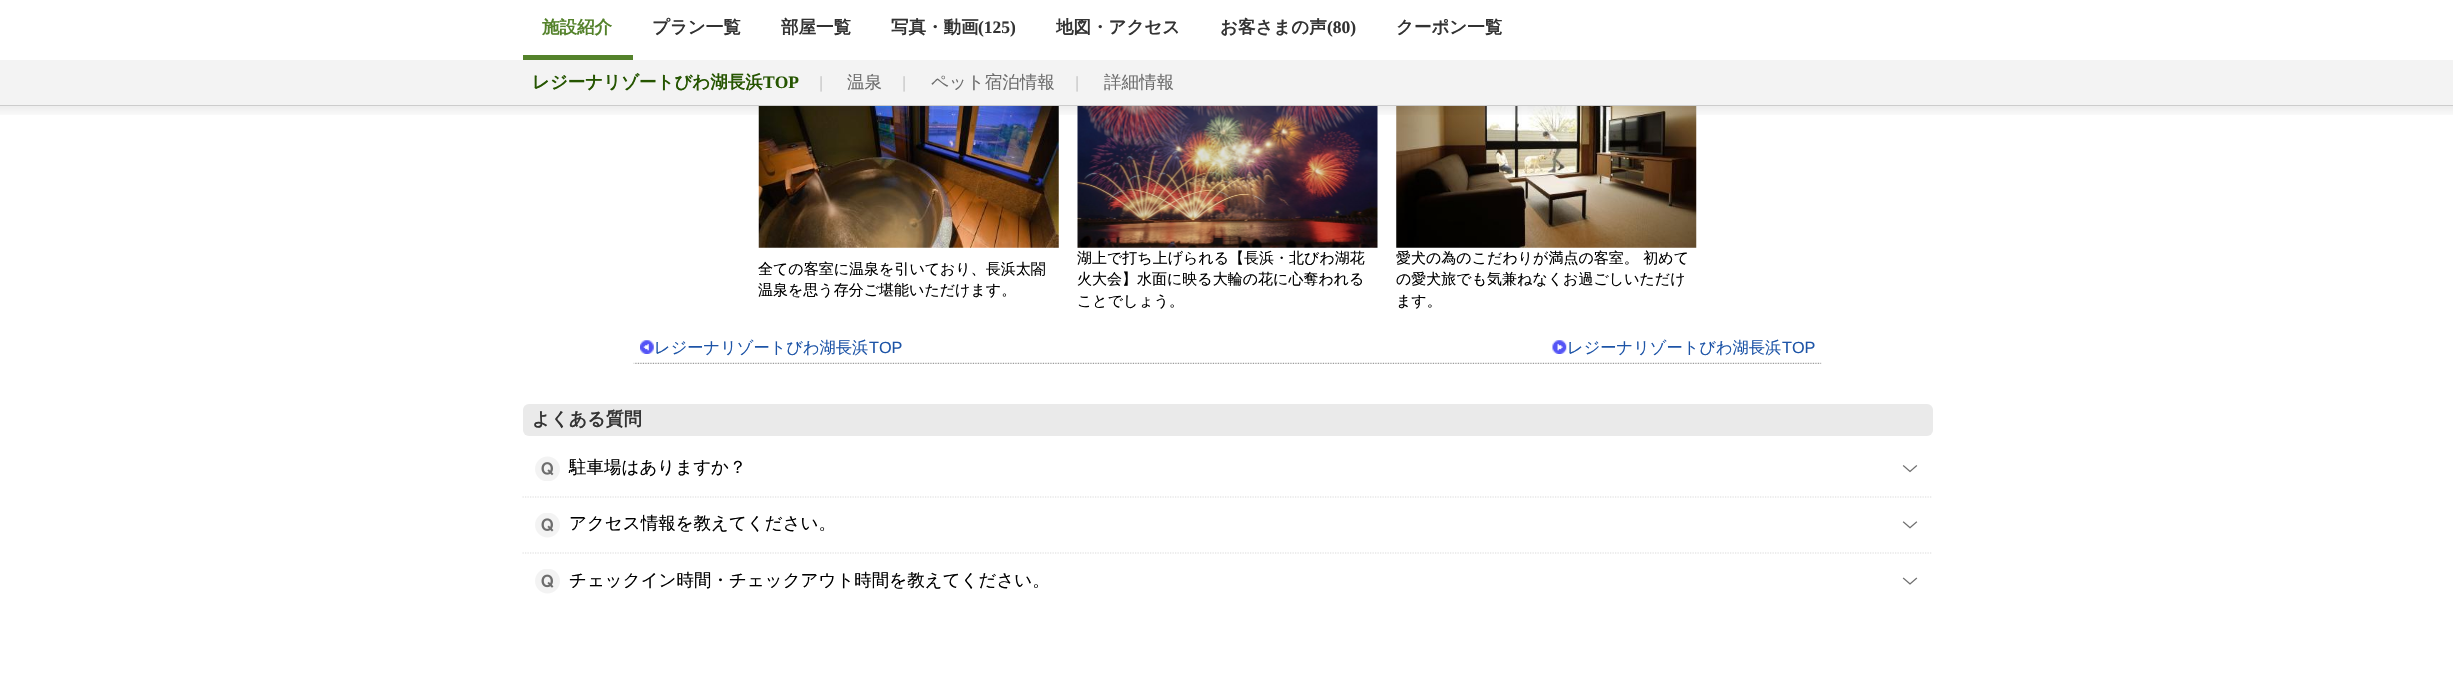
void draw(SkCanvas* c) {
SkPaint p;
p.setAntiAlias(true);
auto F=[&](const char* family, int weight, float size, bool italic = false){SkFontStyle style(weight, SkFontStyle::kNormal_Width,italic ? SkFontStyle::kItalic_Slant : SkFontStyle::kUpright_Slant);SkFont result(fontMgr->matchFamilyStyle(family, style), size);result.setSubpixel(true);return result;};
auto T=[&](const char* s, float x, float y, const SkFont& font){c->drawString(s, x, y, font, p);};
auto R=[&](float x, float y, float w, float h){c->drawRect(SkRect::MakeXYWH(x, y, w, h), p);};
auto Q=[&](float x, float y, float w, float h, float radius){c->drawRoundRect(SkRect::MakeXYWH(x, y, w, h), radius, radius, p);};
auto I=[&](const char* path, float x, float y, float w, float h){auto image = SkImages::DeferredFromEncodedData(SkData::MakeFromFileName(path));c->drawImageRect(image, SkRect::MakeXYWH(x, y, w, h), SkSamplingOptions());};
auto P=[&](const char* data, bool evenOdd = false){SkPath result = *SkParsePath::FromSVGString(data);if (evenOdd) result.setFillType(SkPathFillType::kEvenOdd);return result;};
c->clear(0xffffffff);
p.setColor(0xff54822b);
R(523,55,110,5);
auto f1 = F("WenQuanYi Zen Hei",700,17.5);
T("施設紹介",542,33,f1);
p.setColor(0xff333333);
T("プラン一覧",652,33,f1);
T("部屋一覧",781,33,f1);
T("写真・動画",891,33,f1);
auto f2 = F("Liberation Serif",700,17.5);
T("(125)",978,33,f2);
T("地図・アクセス",1056,33,f1);
T("お客さまの声",1220,33,f1);
T("(80)",1327,33,f2);
T("クーポン一覧",1396,33,f1);
I("1.png",758,106,301,142);
I("2.png",1077,106,301,142);
I("3.png",1396,106,301,142);
{
const SkColor colors[] = {0x00000000,0x12000000};
const float stops[] = {0,1};
const SkPoint ends[] = {{1227,119}, {1227,106}};
p.setShader(SkGradientShader::MakeLinear(ends, colors, stops, 2, SkTileMode::kClamp));
p.setAlpha(255);
}
R(0,106,2453,9);
p.setShader(nullptr);
p.setColor(0xfff3f3f3);
R(0,60,2453,45);
p.setColor(0xffcccccc);
R(0,105,2453,1);
p.setColor(0xff255500);
T("レジーナリゾートびわ湖長浜",532,88,f1);
T("TOP",763,88,f2);
auto f3 = F("Liberation Sans",400,16.25);
p.setColor(0xffcccccc);
T("|",819,88,f3);
auto f4 = F("WenQuanYi Zen Hei",500,17.5);
p.setColor(0xff6d6d6d);
T("温泉",847,88,f4);
p.setColor(0xffcccccc);
T("|",902,88,f3);
p.setColor(0xff6d6d6d);
T("ペット宿泊情報",931,88,f4);
p.setColor(0xffcccccc);
T("|",1075,88,f3);
p.setColor(0xff6d6d6d);
T("詳細情報",1104,88,f4);
auto f5 = F("WenQuanYi Zen Hei",500,15);
p.setColor(0xff000000);
T("全ての客室に温泉を引いており、長浜太閤",758,274,f5);
T("温泉を思う存分ご堪能いただけます。",758,295,f5);
T("湖上で打ち上げられる【長浜・北びわ湖花",1077,263,f5);
T("火大会】水面に映る大輪の花に心奪われる",1077,284,f5);
T("ことでしょう。",1077,306,f5);
T("愛犬の為のこだわりが満点の客室。 初めて",1396,263,f5);
T("の愛犬旅でも気兼ねなくお過ごしいただけ",1396,284,f5);
T("ます。",1396,306,f5);
I("4.png",633,362,1189,2);
I("5.png",640,340,14,14);
auto f6 = F("WenQuanYi Zen Hei",500,16.25);
p.setColor(0xff1d54a7);
T("レジーナリゾートびわ湖長浜",654,353,f6);
T("TOP",869,353,f3);
I("6.png",1552,340,15,14);
T("レジーナリゾートびわ湖長浜",1567,353,f6);
T("TOP",1782,353,f3);
p.setColor(0xffeaeaea);
Q(523,404,1410,32,6);
auto f7 = F("WenQuanYi Zen Hei",700,18);
p.setColor(0xff333333);
T("よくある質問",532,425,f7);
p.setStroke(true);
p.setStrokeWidth(1.2);
p.setColor(0xffdbdbdb);
p.setPathEffect(SkDashPathEffect::Make({{1.25f,1.25f}}, 0));
c->drawPath(P("M522.5 497h1410"),p);
p.setPathEffect(nullptr);
I("7.png",535,456,25,25);
p.setStroke(false);
p.setColor(0xff000000);
T("駐車場はありますか？",569,473,f4);
I("8.png",1902,465,16,8);
p.setStroke(true);
p.setColor(0xffdbdbdb);
p.setPathEffect(SkDashPathEffect::Make({{1.25f,1.25f}}, 0));
c->drawPath(P("M522.5 553h1410"),p);
p.setPathEffect(nullptr);
I("9.png",535,513,25,25);
p.setStroke(false);
p.setColor(0xff000000);
T("アクセス情報を教えてください。",569,529,f4);
I("10.png",1902,521,16,8);
I("11.png",535,569,25,25);
T("チェックイン時間・チェックアウト時間を教えてください。",569,586,f4);
I("12.png",1902,577,16,8);
}
